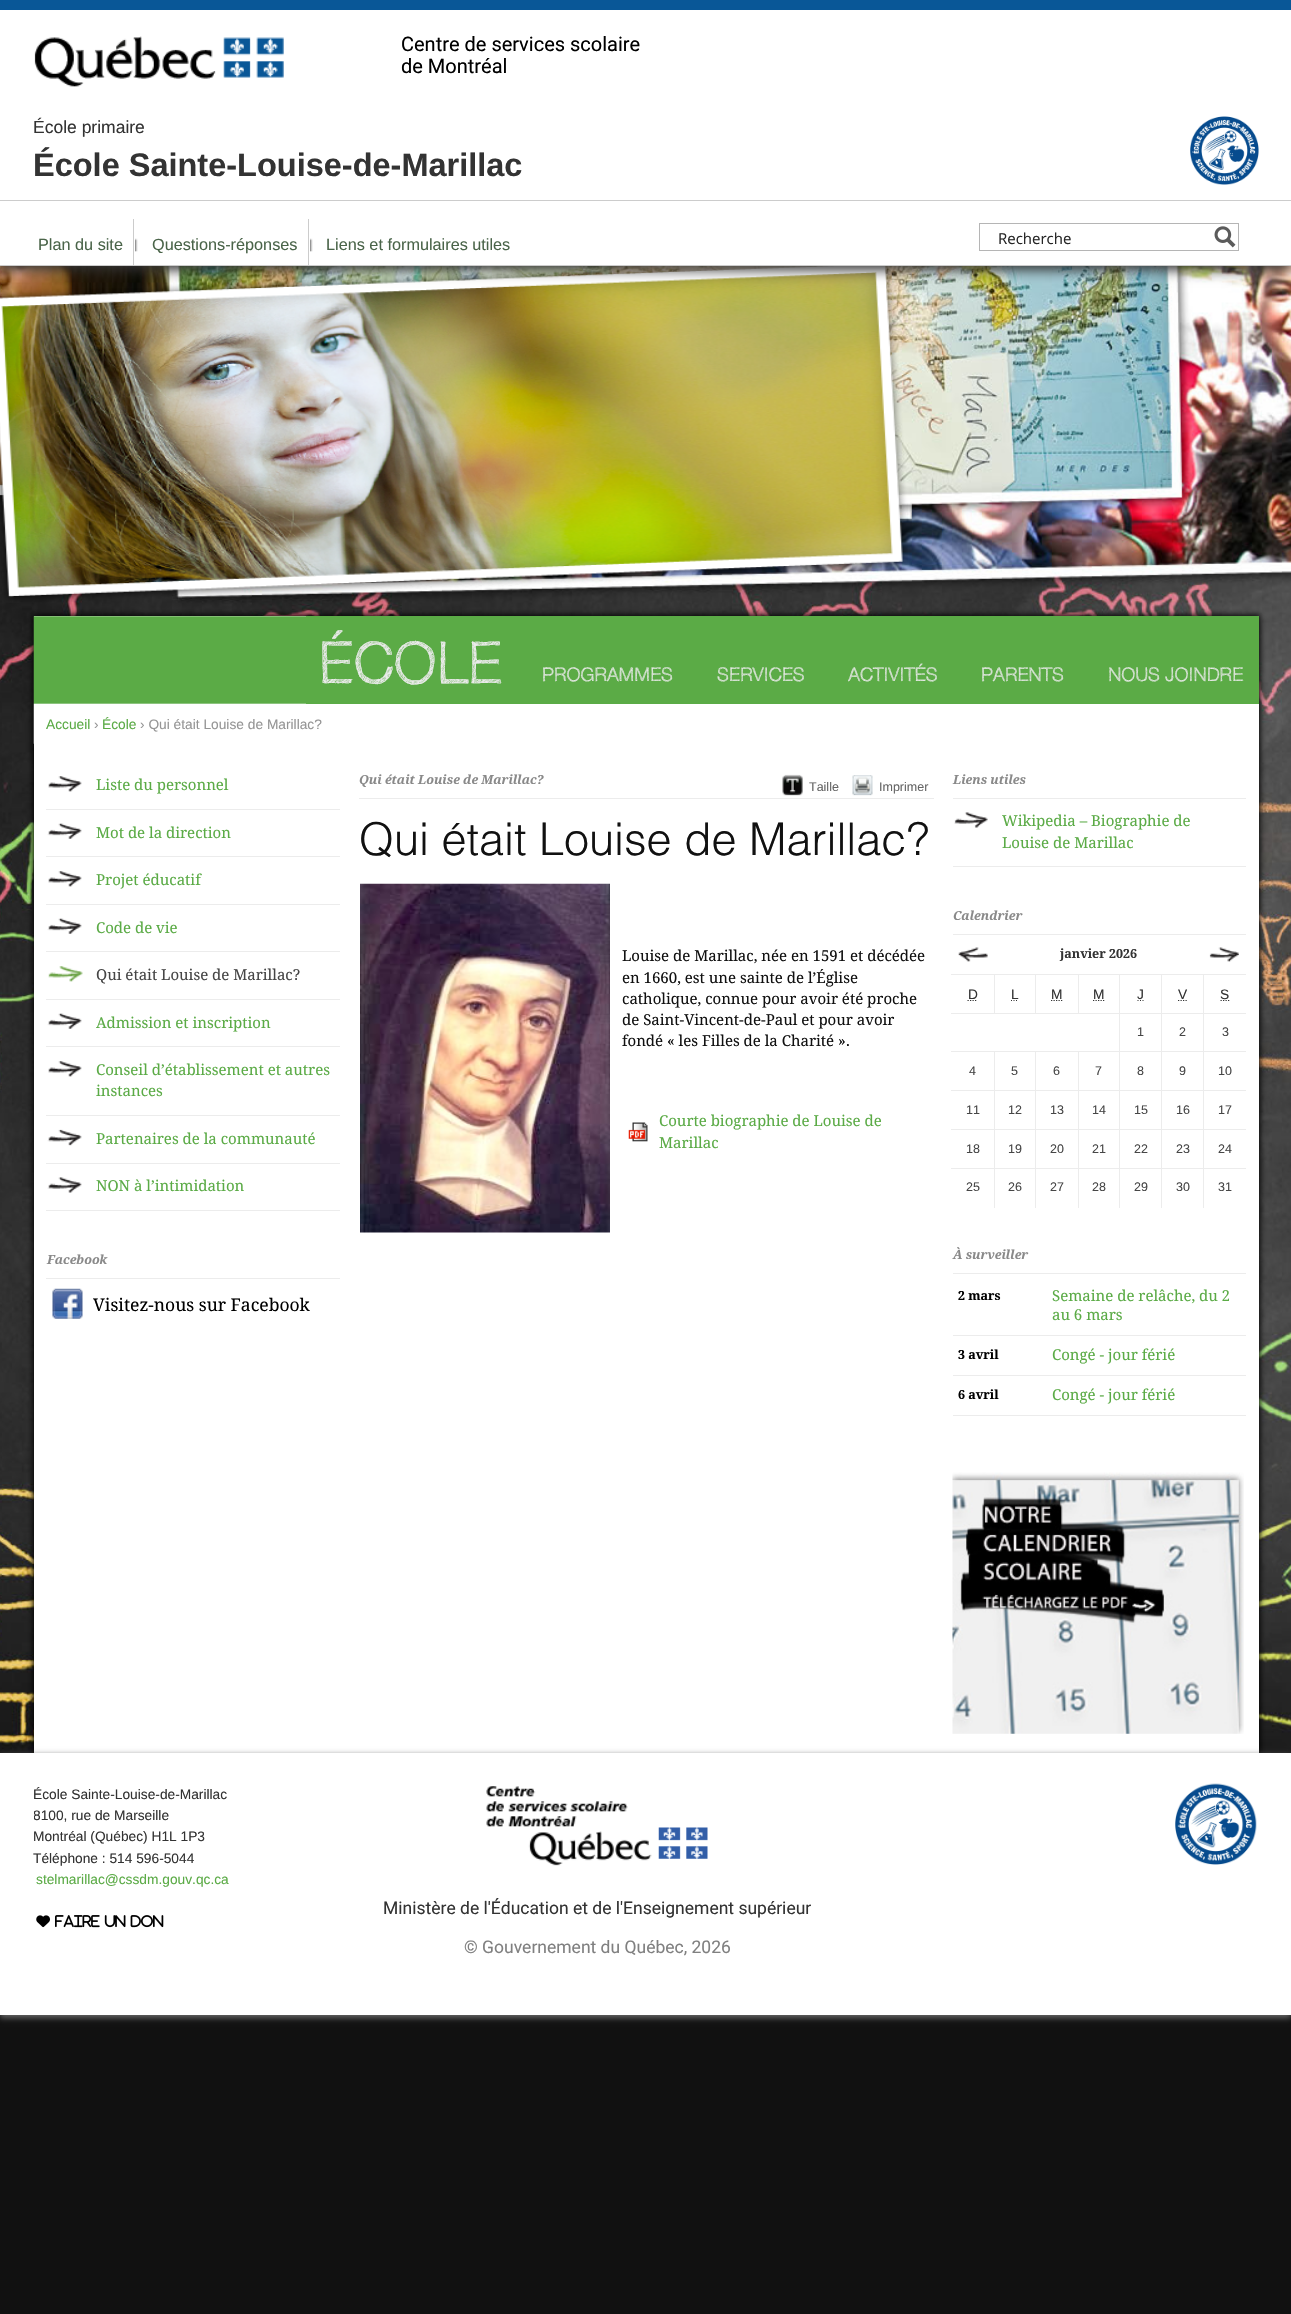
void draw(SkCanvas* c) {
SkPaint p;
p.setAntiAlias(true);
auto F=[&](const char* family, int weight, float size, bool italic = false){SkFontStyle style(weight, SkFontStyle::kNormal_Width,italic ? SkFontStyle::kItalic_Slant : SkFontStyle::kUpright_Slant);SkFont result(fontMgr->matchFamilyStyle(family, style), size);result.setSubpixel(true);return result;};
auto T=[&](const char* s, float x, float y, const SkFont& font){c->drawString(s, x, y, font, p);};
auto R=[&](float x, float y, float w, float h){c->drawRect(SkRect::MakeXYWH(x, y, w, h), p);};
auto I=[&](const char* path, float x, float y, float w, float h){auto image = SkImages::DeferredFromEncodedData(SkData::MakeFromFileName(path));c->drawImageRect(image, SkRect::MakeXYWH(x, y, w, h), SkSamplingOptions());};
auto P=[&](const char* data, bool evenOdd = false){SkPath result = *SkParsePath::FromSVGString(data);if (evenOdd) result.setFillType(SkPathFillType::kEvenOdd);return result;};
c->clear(0xff111111);
I("1.png",0,266,1291,1487);
I("6.png",0,266,908,336);
p.setColor(0xff333333);
p.setMaskFilter(SkMaskFilter::MakeBlur(kNormal_SkBlurStyle, 6));
c->drawRect(SkRect::MakeXYWH(0,4,1291,266),p);
p.setMaskFilter(nullptr);
p.setColor(0xffffffff);
R(0,10,1291,255);
p.setColor(0xffcccccc);
R(0,265,1291,1);
p.setColor(0xff095797);
R(0,0,1291,10);
I("2.png",34,36,250,51);
auto f1 = F("Roboto",400,20);
p.setColor(0xff000000);
T("Centre de services scolaire",401,51,f1);
T("de Montréal",401,73,f1);
auto f2 = F("Liberation Sans",400,17.5);
p.setColor(0xff333333);
T("École primaire",33,133,f2);
auto f3 = F("Liberation Sans",700,32.5);
T("École Sainte-Louise-de-Marillac",33,176,f3);
I("3.png",1190,116,69,69);
p.setColor(0xffcccccc);
R(0,200,1291,1);
auto f4 = F("Liberation Sans",400,16.25);
p.setColor(0xff4a6449);
T("Plan du site",38,250,f4);
I("4.png",135,238,3,14);
p.setColor(0xffcccccc);
R(133,219,1,46);
p.setColor(0xff4a6449);
T("Questions-réponses",152,250,f4);
I("4.png",310,238,3,14);
p.setColor(0xffcccccc);
R(308,219,1,46);
p.setColor(0xff4a6449);
T("Liens et formulaires utiles",326,250,f4);
p.setStroke(true);
p.setStrokeWidth(1);
p.setColor(0xffb5b5b5);
c->drawRect(SkRect::MakeXYWH(979.5,223.5,259,27),p);
auto f5 = F("Open Sans",400,15);
p.setStroke(false);
p.setColor(0xff262626);
T("Recherche",998,244,f5);
I("5.png",1214,226,22,22);
p.setColor(0xff000000);
p.setMaskFilter(SkMaskFilter::MakeBlur(kNormal_SkBlurStyle, 3));
c->drawRect(SkRect::MakeXYWH(33,615,1227,1151),p);
p.setMaskFilter(nullptr);
p.setColor(0xffffffff);
R(34,616,1225,1137);
I("7.png",33,616,1226,128);
p.setColor(0xff5bab46);
R(306,616,953,88);
auto f6 = F("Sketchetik",300,57.5);
p.setColor(0xffebebeb);
T("ÉCOLE",319,683,f6);
auto f7 = F("Sketchetik",300,18.75);
T("PROGRAMMES",542,681,f7);
T("SERVICES",717,681,f7);
T("ACTIVITÉS",848,681,f7);
T("PARENTS",981,681,f7);
T("NOUS JOINDRE",1108,681,f7);
auto f8 = F("Liberation Sans",400,13.75);
p.setColor(0xff5bab46);
T("Accueil",46,729,f8);
p.setColor(0xff959595);
T("›",94,729,f8);
p.setColor(0xff5bab46);
T("École",102,729,f8);
p.setColor(0xff959595);
T("› Qui était Louise de Marillac?",140,729,f8);
p.setColor(0xffececec);
R(46,809,294,1);
I("8.png",48,776,34,16);
auto f9 = F("Droid Serif",400,15);
p.setColor(0xff5bab46);
T("Liste du personnel",96,790,f9);
p.setColor(0xffececec);
R(46,856,294,1);
I("9.png",47,823,35,16);
p.setColor(0xff5bab46);
T("Mot de la direction",96,838,f9);
p.setColor(0xffececec);
R(46,904,294,1);
I("10.png",48,871,34,16);
p.setColor(0xff5bab46);
T("Projet éducatif",96,885,f9);
p.setColor(0xffececec);
R(46,951,294,1);
I("9.png",47,918,35,16);
p.setColor(0xff5bab46);
T("Code de vie",96,933,f9);
p.setColor(0xffececec);
R(46,999,294,1);
I("11.png",48,966,35,16);
p.setColor(0xff464646);
T("Qui était Louise de Marillac?",96,980,f9);
p.setColor(0xffececec);
R(46,1046,294,1);
I("9.png",47,1013,35,16);
p.setColor(0xff5bab46);
T("Admission et inscription",96,1028,f9);
p.setColor(0xffececec);
R(46,1115,294,1);
I("10.png",48,1061,34,16);
p.setColor(0xff5bab46);
T("Conseil d’établissement et autres",96,1075,f9);
T("instances",96,1096,f9);
p.setColor(0xffececec);
R(46,1163,294,1);
I("12.png",47,1129,35,17);
p.setColor(0xff5bab46);
T("Partenaires de la communauté",96,1144,f9);
p.setColor(0xffececec);
R(46,1210,294,1);
I("13.png",47,1177,35,16);
p.setColor(0xff5bab46);
T("NON à l’intimidation",96,1191,f9);
p.setColor(0xffececec);
R(46,1278,294,1);
auto f10 = F("Droid Serif",700,12.5,true);
p.setColor(0xff898989);
T("Facebook",47,1264,f10);
I("14.png",52,1288,31,31);
auto f11 = F("Droid Serif",400,17.5);
p.setColor(0xff000000);
T("Visitez-nous sur Facebook",93,1311,f11);
p.setColor(0xffececec);
R(359,798,575,1);
p.setColor(0xff898989);
T("Qui était Louise de Marillac?",359,784,f10);
I("15.png",782,774,21,22);
auto f12 = F("Liberation Sans",400,12.5);
p.setColor(0xff666666);
T("Taille",809,791,f12);
I("16.png",852,775,21,21);
T("Imprimer",879,791,f12);
auto f13 = F("Helvetica",300,45);
p.setColor(0xff111111);
T("Qui était Louise de Marillac?",359,855,f13);
I("17.png",360,883,250,350);
T("Louise de Marillac, née en 1591 et décédée",622,961,f9);
T("en 1660, est une sainte de l’Église",622,983,f9);
T("catholique, connue pour avoir été proche",622,1004,f9);
T("de Saint-Vincent-de-Paul et pour avoir",622,1025,f9);
T("fondé « les Filles de la Charité ».",622,1046,f9);
I("18.png",628,1122,20,20);
p.setColor(0xff5bab46);
T("Courte biographie de Louise de",659,1126,f9);
T("Marillac",659,1148,f9);
p.setColor(0xffececec);
R(953,798,293,1);
p.setColor(0xff898989);
T("Liens utiles",953,784,f10);
p.setColor(0xffececec);
R(953,866,293,1);
I("19.png",954,812,34,16);
p.setColor(0xff5bab46);
T("Wikipedia – Biographie de",1002,826,f9);
T("Louise de Marillac",1002,848,f9);
p.setColor(0xffececec);
R(953,934,293,1);
p.setColor(0xff898989);
T("Calendrier",953,920,f10);
I("20.png",958,947,30,15);
auto f14 = F("Droid Serif",700,12.5);
p.setColor(0xff333333);
T("janvier 2026",1060,958,f14);
I("21.png",1209,947,30,15);
p.setColor(0xffececec);
R(1203,974,43,1);
R(1203,1013,43,1);
R(1203,1051,43,1);
R(1203,1090,43,1);
R(1203,1129,43,1);
R(1203,1168,43,1);
R(1203,1168,1,40);
R(1161,1168,43,1);
R(1203,1129,1,40);
R(1161,1129,43,1);
R(1203,1090,1,40);
R(1161,1090,43,1);
R(1203,1051,1,40);
R(1161,1051,43,1);
R(1203,1013,1,40);
R(1161,1013,43,1);
R(1203,974,1,40);
R(1161,974,43,1);
R(1161,1168,1,40);
R(1119,1168,44,1);
R(1161,1129,1,40);
R(1119,1129,44,1);
R(1161,1090,1,40);
R(1119,1090,44,1);
R(1161,1051,1,40);
R(1119,1051,44,1);
R(1161,1013,1,40);
R(1119,1013,44,1);
R(1161,974,1,40);
R(1119,974,44,1);
R(1119,1168,1,40);
R(1078,1168,42,1);
R(1119,1129,1,40);
R(1078,1129,42,1);
R(1119,1090,1,40);
R(1078,1090,42,1);
R(1119,1051,1,40);
R(1078,1051,42,1);
R(1119,1013,1,40);
R(951,1013,169,1);
R(1119,974,1,40);
R(1078,974,42,1);
R(1078,974,1,40);
R(1035,974,44,1);
R(1035,974,1,40);
R(994,974,42,1);
R(994,974,1,40);
R(951,974,44,1);
p.setColor(0xff333333);
T("D",968,999,f8);
p.setStroke(true);
p.setStrokeWidth(1.2);
p.setPathEffect(SkDashPathEffect::Make({{1.25f,1.25f}}, 0));
c->drawPath(P("M967.5 1000.5h10"),p);
p.setPathEffect(nullptr);
p.setStroke(false);
T("L",1011,999,f8);
p.setStroke(true);
c->drawPath(P("M1011 1000.5h1m1.5 0h1m1.5 0h1m1.5 0h0"),p);
p.setStroke(false);
T("M",1051,999,f8);
p.setStroke(true);
p.setPathEffect(SkDashPathEffect::Make({{1.25f,1.25f}}, 0));
c->drawPath(P("M1051 1000.5h11.5"),p);
p.setPathEffect(nullptr);
p.setStroke(false);
T("M",1093,999,f8);
p.setStroke(true);
p.setPathEffect(SkDashPathEffect::Make({{1.25f,1.25f}}, 0));
c->drawPath(P("M1093 1000.5h11.5"),p);
p.setPathEffect(nullptr);
c->drawPath(P("M1137.5 1000.5h1m1.5 0h1m1.5 0h1"),p);
p.setStroke(false);
T("J",1137,999,f8);
T("V",1178,999,f8);
p.setStroke(true);
p.setPathEffect(SkDashPathEffect::Make({{1.25f,1.25f}}, 0));
c->drawPath(P("M1178 1000.5h9.5"),p);
p.setPathEffect(nullptr);
p.setPathEffect(SkDashPathEffect::Make({{1.25f,1.25f}}, 0));
c->drawPath(P("M1220.5 1000.5h9"),p);
p.setPathEffect(nullptr);
p.setStroke(false);
T("S",1220,999,f8);
p.setColor(0xff464646);
T("1",1137,1036,f12);
T("2",1179,1036,f12);
T("3",1222,1036,f12);
p.setColor(0xffececec);
R(1078,1168,1,40);
R(1035,1168,44,1);
R(1078,1129,1,40);
R(1035,1129,44,1);
R(1078,1090,1,40);
R(1035,1090,44,1);
R(1078,1051,1,40);
R(1035,1051,44,1);
R(1035,1168,1,40);
R(994,1168,42,1);
R(1035,1129,1,40);
R(994,1129,42,1);
R(1035,1090,1,40);
R(994,1090,42,1);
R(1035,1051,1,40);
R(994,1051,42,1);
R(994,1168,1,40);
R(951,1168,44,1);
R(994,1129,1,40);
R(951,1129,44,1);
R(994,1090,1,40);
R(951,1090,44,1);
R(994,1051,1,40);
R(951,1051,44,1);
p.setColor(0xff464646);
T("4",969,1075,f12);
T("5",1011,1075,f12);
T("6",1053,1075,f12);
T("7",1095,1075,f12);
T("8",1137,1075,f12);
T("9",1179,1075,f12);
T("10",1218,1075,f12);
T("11",966,1114,f12);
T("12",1008,1114,f12);
T("13",1050,1114,f12);
T("14",1092,1114,f12);
T("15",1134,1114,f12);
T("16",1176,1114,f12);
T("17",1218,1114,f12);
T("18",966,1153,f12);
T("19",1008,1153,f12);
T("20",1050,1153,f12);
T("21",1092,1153,f12);
T("22",1134,1153,f12);
T("23",1176,1153,f12);
T("24",1218,1153,f12);
T("25",966,1191,f12);
T("26",1008,1191,f12);
T("27",1050,1191,f12);
T("28",1092,1191,f12);
T("29",1134,1191,f12);
T("30",1176,1191,f12);
T("31",1218,1191,f12);
p.setColor(0xffececec);
R(953,1273,293,1);
p.setColor(0xff898989);
T("À surveiller",953,1259,f10);
p.setColor(0xffececec);
R(953,1335,293,1);
p.setColor(0xff000000);
T("2 mars",958,1300,f14);
p.setColor(0xff5bab46);
T("Semaine de relâche, du 2",1052,1301,f9);
T("au 6 mars",1052,1320,f9);
p.setColor(0xffececec);
R(953,1375,293,1);
p.setColor(0xff000000);
T("3 avril",958,1359,f14);
p.setColor(0xff5bab46);
T("Congé - jour férié",1052,1360,f9);
p.setColor(0xffececec);
R(953,1415,293,1);
p.setColor(0xff000000);
T("6 avril",958,1399,f14);
p.setColor(0xff5bab46);
T("Congé - jour férié",1052,1400,f9);
I("22.png",952,1472,292,262);
p.setColor(0xff666666);
p.setMaskFilter(SkMaskFilter::MakeBlur(kNormal_SkBlurStyle, 3));
c->drawRect(SkRect::MakeXYWH(0,1755,1291,263),p);
p.setMaskFilter(nullptr);
p.setColor(0xffffffff);
R(0,1753,1291,262);
p.setColor(0xff333333);
T("École Sainte-Louise-de-Marillac",33,1799,f8);
c->save();
c->clipRect(SkRect::MakeXYWH(34,1753,1225,262));
T("8100, rue de Marseille",33,1820,f8);
c->restore();
T("Montréal (Québec) H1L 1P3",33,1841,f8);
T("Téléphone : 514 596-5044",33,1863,f8);
p.setColor(0xff5bab46);
T("stelmarillac@cssdm.gouv.qc.ca",36,1884,f8);
I("23.png",36,1915,14,13);
I("24.png",55,1915,109,13);
I("25.png",1175,1783,82,82);
I("26.png",486,1786,222,80);
auto f15 = F("Roboto",400,17.5);
p.setColor(0xff333333);
T("Ministère de l'Éducation et de l'Enseignement supérieur",383,1914,f15);
p.setColor(0xff808080);
T("© Gouvernement du Québec, 2026",464,1953,f15);
}
